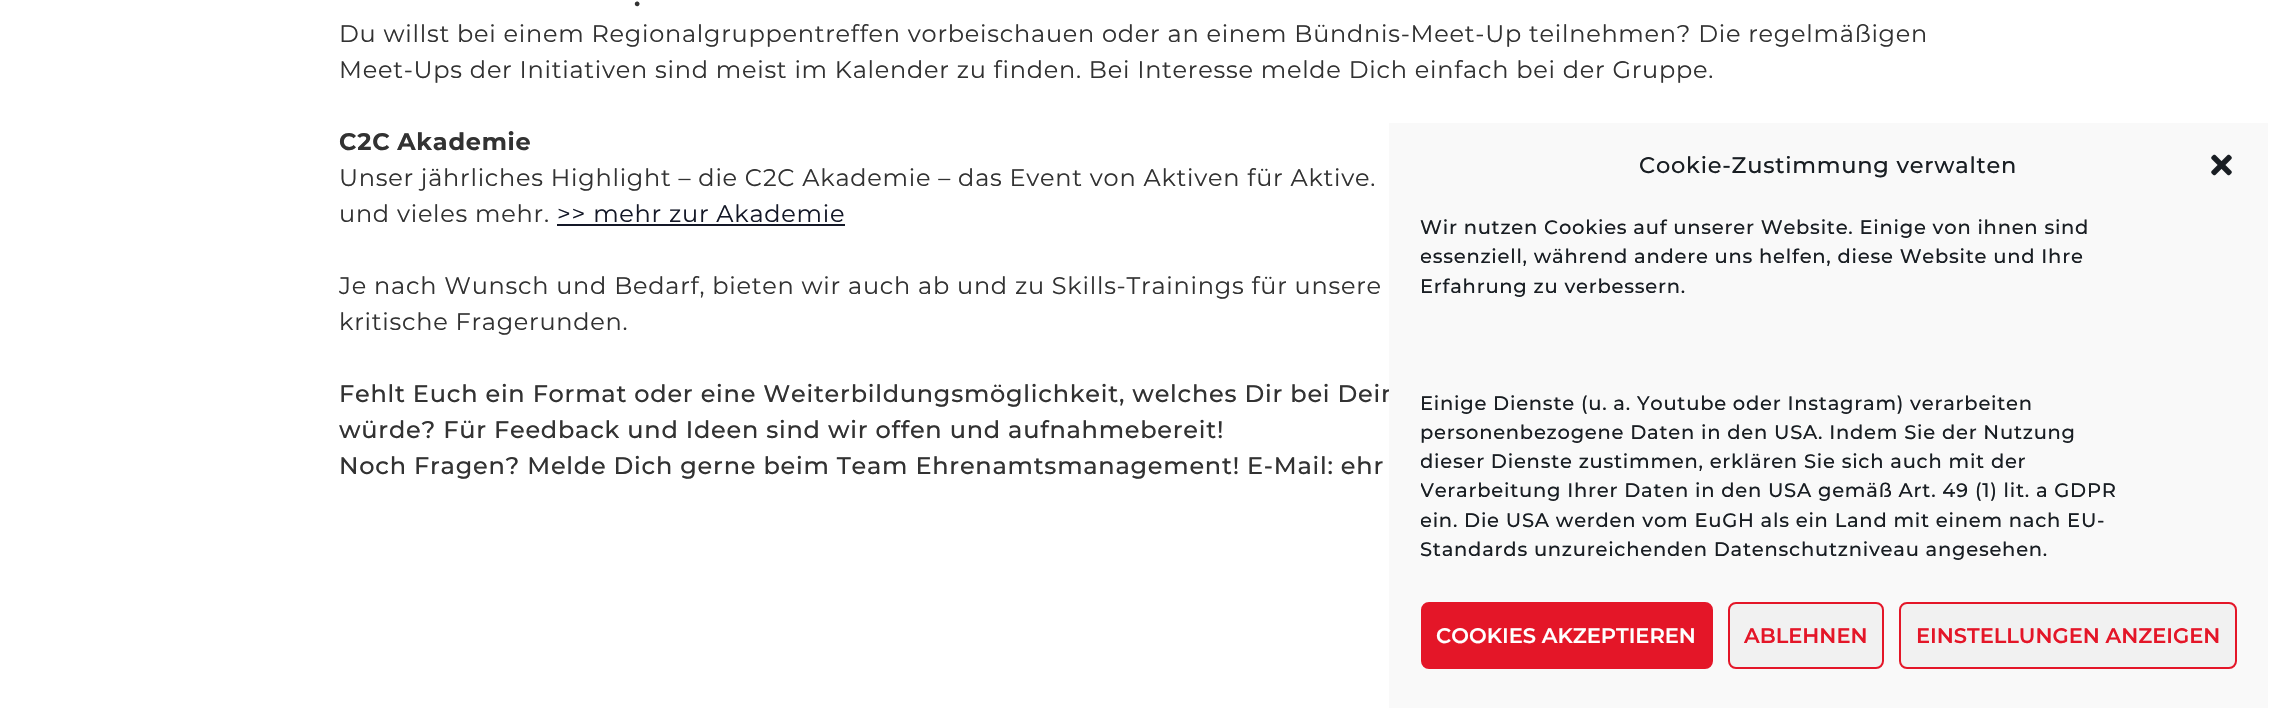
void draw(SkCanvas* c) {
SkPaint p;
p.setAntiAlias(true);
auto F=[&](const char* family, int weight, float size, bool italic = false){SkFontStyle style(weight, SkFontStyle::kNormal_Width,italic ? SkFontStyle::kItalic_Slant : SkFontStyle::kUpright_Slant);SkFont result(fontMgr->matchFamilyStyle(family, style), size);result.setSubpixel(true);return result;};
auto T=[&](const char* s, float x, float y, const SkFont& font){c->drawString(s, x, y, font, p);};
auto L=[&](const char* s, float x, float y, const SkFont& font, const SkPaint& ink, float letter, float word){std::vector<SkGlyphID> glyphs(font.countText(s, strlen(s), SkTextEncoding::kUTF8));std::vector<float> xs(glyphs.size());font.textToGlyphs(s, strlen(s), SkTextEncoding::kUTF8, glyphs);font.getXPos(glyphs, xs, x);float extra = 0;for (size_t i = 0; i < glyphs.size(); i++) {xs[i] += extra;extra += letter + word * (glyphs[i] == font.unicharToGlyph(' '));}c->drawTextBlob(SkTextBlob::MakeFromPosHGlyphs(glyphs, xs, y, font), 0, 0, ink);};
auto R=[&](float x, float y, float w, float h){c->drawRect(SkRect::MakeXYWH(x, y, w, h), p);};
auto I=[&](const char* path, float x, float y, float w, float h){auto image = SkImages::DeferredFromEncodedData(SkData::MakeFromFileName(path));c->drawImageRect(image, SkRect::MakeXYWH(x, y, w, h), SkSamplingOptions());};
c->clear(0xffffffff);
auto f1 = F("Montserrat",700,24);
p.setColor(0xff323232);
L(".",634,6,f1,p,.75,0);
auto f2 = F("Montserrat",400,24);
L("Du willst bei einem Regionalgruppentreffen vorbeischauen oder an einem Bündnis-Meet-Up teilnehmen? Die regelmäßigen",339,42,f2,p,.75,0);
L("Meet-Ups der Initiativen sind meist im Kalender zu finden. Bei Interesse melde Dich einfach bei der Gruppe.",339,78,f2,p,.75,0);
L("C2C Akademie",339,150,f1,p,.75,-1);
L("Unser jährliches Highlight – die C2C Akademie – das Event von Aktiven für Aktive.",339,186,f2,p,.75,0);
L("und vieles mehr.",339,222,f2,p,.75,0);
p.setColor(0xff141827);
L(">> mehr zur Akademie",557,222,f2,p,.75,0);
R(557,224,288,2);
p.setColor(0xff323232);
L("Je nach Wunsch und Bedarf, bieten wir auch ab und zu Skills-Trainings für unsere",339,294,f2,p,.75,0);
L("kritische Fragerunden.",339,330,f2,p,.75,0);
auto f3 = F("Montserrat",500,24);
L("Fehlt Euch ein Format oder eine Weiterbildungsmöglichkeit, welches Dir bei Dein",339,402,f3,p,.75,0);
L("würde? Für Feedback und Ideen sind wir offen und aufnahmebereit!",339,438,f3,p,.75,0);
L("Noch Fragen? Melde Dich gerne beim Team Ehrenamtsmanagement! E-Mail: ehr",339,474,f3,p,.75,0);
p.setColor(0xfff9f9f9);
R(1389,123,879,585);
auto f4 = F("Montserrat",500,22.5);
p.setColor(0xff191e23);
L("Cookie-Zustimmung verwalten",1639,173,f4,p,.75,0);
I("1.png",2211,154,21,22);
auto f5 = F("Montserrat",500,19.5);
L("Wir nutzen Cookies auf unserer Website. Einige von ihnen sind",1420,234,f5,p,.75,0);
c->save();
c->clipRect(SkRect::MakeXYWH(1421,213,816,359));
L("essenziell, während andere uns helfen, diese Website und Ihre",1420,263,f5,p,.75,0);
c->restore();
L("Erfahrung zu verbessern.",1420,293,f5,p,.75,0);
L("Einige Dienste (u. a. Youtube oder Instagram) verarbeiten",1420,410,f5,p,.75,0);
L("personenbezogene Daten in den USA. Indem Sie der Nutzung",1420,439,f5,p,.75,0);
c->save();
c->clipRect(SkRect::MakeXYWH(1421,213,816,359));
L("dieser Dienste zustimmen, erklären Sie sich auch mit der",1420,468,f5,p,.75,0);
L("Verarbeitung Ihrer Daten in den USA gemäß Art. 49 (1) lit. a GDPR",1420,497,f5,p,.75,0);
L("ein. Die USA werden vom EuGH als ein Land mit einem nach EU-",1420,527,f5,p,.75,0);
c->restore();
L("Standards unzureichenden Datenschutzniveau angesehen.",1420,556,f5,p,.75,0);
p.setColor(0xffe41628);
c->drawRoundRect(SkRect::MakeXYWH(1422,603,290,65),7,7,p);
p.setStroke(true);
p.setStrokeWidth(2);
c->drawRoundRect(SkRect::MakeXYWH(1422,603,290,65),7,7,p);
auto f6 = F("Montserrat",600,21);
p.setStroke(false);
p.setColor(0xffffffff);
T("COOKIES AKZEPTIEREN",1436,643,f6);
p.setColor(0xfff1f1f1);
c->drawRoundRect(SkRect::MakeXYWH(1729,603,154,65),7,7,p);
p.setStroke(true);
p.setColor(0xffe41628);
c->drawRoundRect(SkRect::MakeXYWH(1729,603,154,65),7,7,p);
p.setStroke(false);
T("ABLEHNEN",1744,643,f6);
p.setColor(0xfff1f1f1);
c->drawRoundRect(SkRect::MakeXYWH(1900,603,336,65),7,7,p);
p.setStroke(true);
p.setColor(0xffe41628);
c->drawRoundRect(SkRect::MakeXYWH(1900,603,336,65),7,7,p);
p.setStroke(false);
T("EINSTELLUNGEN ANZEIGEN",1916,643,f6);
}
